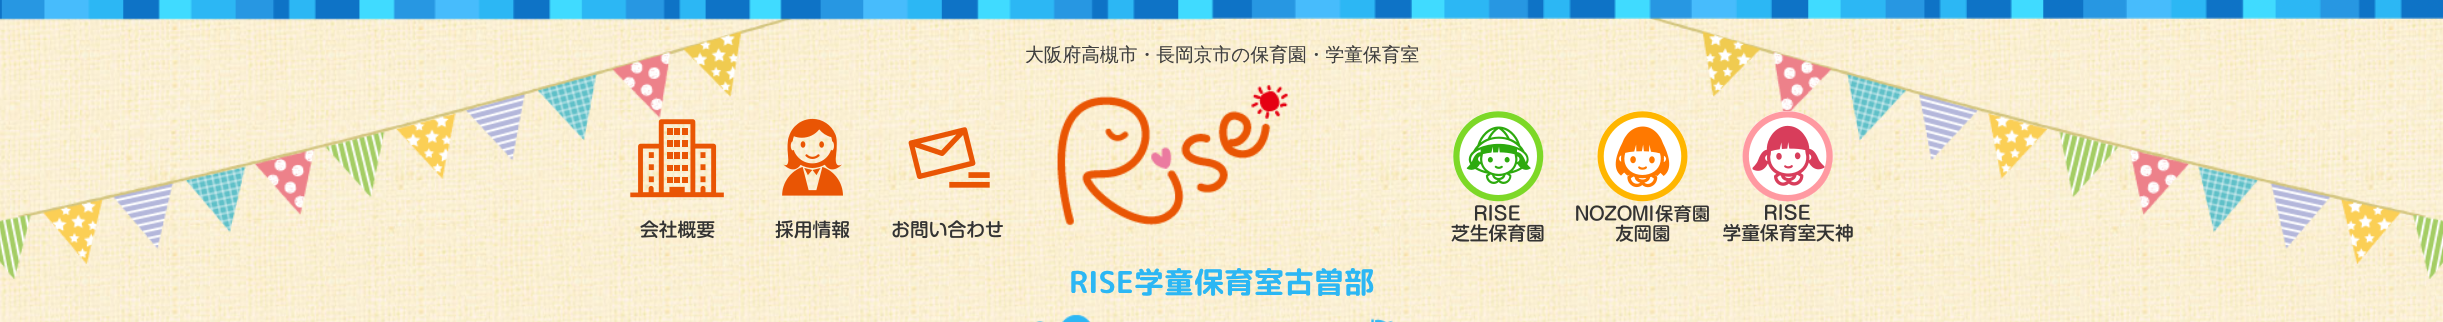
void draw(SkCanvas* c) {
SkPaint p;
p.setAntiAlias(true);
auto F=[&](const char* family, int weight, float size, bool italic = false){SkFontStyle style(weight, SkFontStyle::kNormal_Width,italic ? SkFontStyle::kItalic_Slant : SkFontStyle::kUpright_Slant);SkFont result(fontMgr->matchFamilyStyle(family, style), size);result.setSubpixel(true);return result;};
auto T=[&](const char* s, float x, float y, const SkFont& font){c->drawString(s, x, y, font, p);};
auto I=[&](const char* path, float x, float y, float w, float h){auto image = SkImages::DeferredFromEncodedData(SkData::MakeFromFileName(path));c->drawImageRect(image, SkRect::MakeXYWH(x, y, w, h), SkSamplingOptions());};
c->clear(0xffffffff);
I("1.png",0,17,2443,305);
I("2.png",0,0,2443,279);
auto f1 = F("WenQuanYi Zen Hei",500,18.75);
p.setColor(0xff404040);
T("大阪府高槻市・長岡京市の保育園・学童保育室",1025,61,f1);
I("3.png",1057,84,231,142);
I("4.png",630,119,94,120);
I("5.png",775,118,75,121);
I("6.png",892,127,111,112);
I("7.png",1451,111,93,131);
I("8.png",1576,111,133,131);
I("9.png",1723,111,130,131);
auto f2 = F("Rounded Mplus 1c Bold",700,30);
p.setColor(0xff2cb7f4);
T("RISE学童保育室古曽部",1069,293,f2);
I("10.png",1036,314,55,8);
I("11.png",1371,318,22,4);
}
